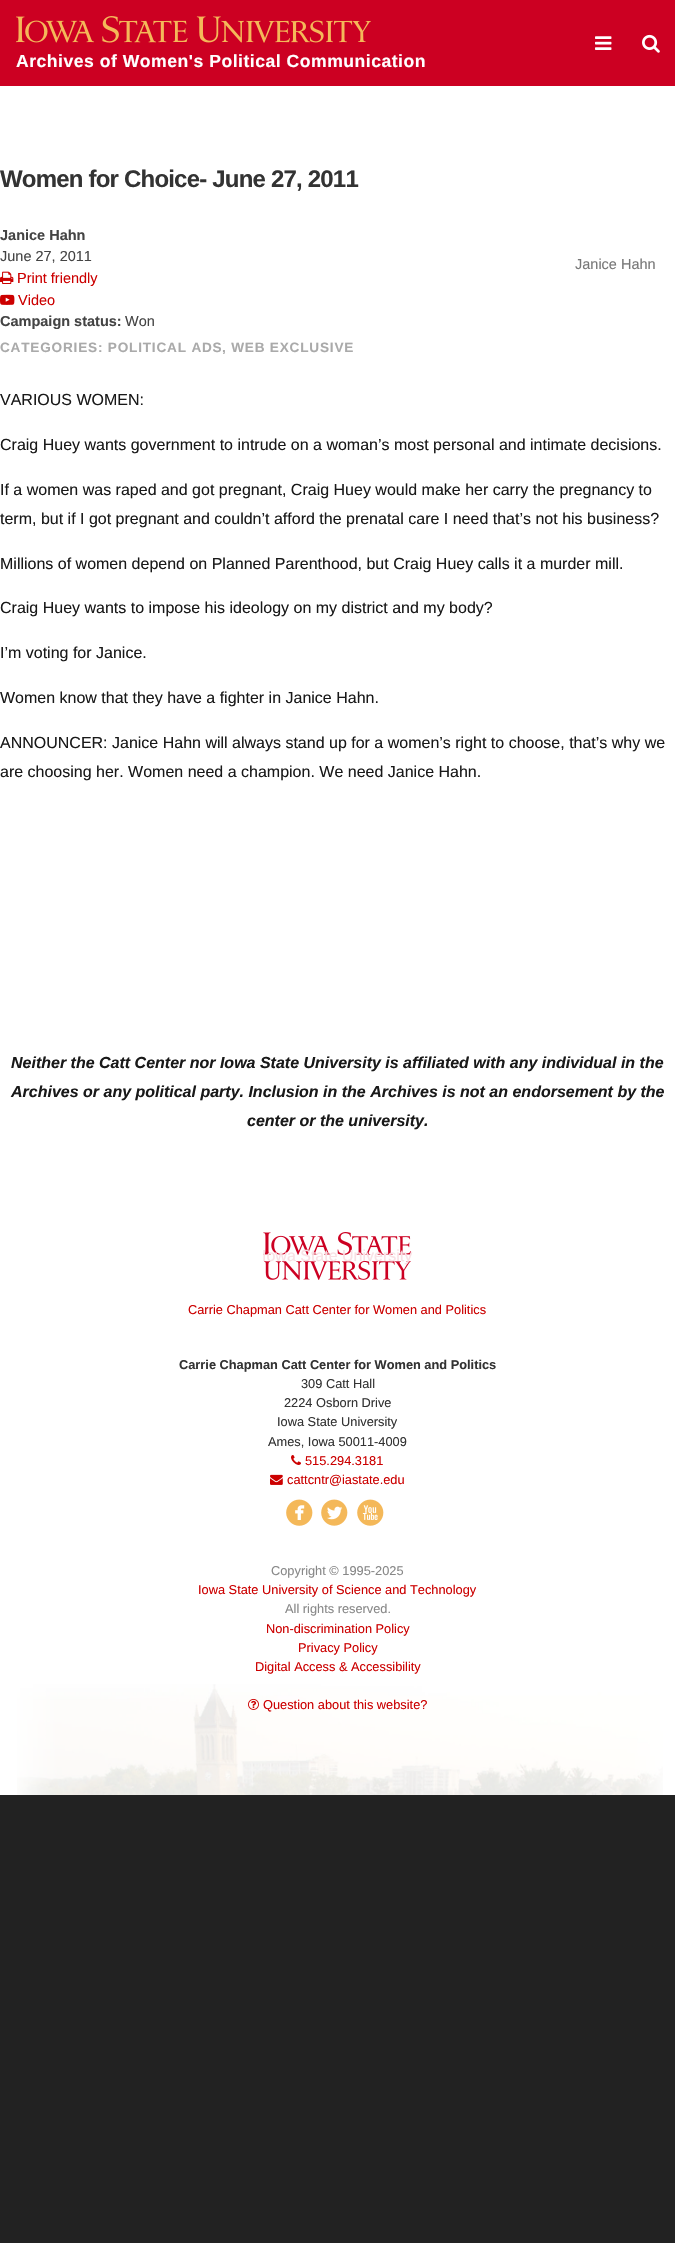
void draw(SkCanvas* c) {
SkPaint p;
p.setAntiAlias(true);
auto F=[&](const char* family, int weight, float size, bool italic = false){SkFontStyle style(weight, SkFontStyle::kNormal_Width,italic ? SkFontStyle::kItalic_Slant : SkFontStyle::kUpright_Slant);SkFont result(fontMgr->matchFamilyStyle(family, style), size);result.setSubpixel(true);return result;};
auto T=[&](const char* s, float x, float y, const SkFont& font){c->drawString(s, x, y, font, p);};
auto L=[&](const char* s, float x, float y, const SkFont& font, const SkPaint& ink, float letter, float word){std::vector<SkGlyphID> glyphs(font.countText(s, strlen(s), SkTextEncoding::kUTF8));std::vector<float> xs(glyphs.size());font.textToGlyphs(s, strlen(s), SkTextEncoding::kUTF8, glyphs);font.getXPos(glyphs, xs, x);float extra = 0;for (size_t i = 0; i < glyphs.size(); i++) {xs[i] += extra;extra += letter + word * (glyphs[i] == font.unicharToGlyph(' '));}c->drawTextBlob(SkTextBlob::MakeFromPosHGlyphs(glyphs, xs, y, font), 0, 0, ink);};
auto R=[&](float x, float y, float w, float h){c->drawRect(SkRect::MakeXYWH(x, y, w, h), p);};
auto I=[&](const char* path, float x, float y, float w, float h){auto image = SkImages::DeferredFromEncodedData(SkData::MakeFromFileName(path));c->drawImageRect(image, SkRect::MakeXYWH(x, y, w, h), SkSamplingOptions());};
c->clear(0xff222222);
p.setColor(0xffcc0022);
R(0,0,675,86);
I("1.png",595,36,17,14);
I("2.png",642,34,18,19);
I("3.png",16,16,355,27);
auto f1 = F("Liberation Sans",700,17.6);
p.setColor(0xffffffff);
L("Archives of Women's Political Communication",16,67,f1,p,.5,0);
R(0,86,675,1709);
auto f2 = F("Liberation Sans",700,24);
p.setColor(0xff333333);
L("Women for Choice- June 27, 2011",0,187,f2,p,-.8,0);
auto f3 = F("Liberation Sans",700,14.5);
p.setColor(0xff444444);
T("Janice Hahn",0,240,f3);
auto f4 = F("Liberation Sans",400,14.5);
T("June 27, 2011",0,261,f4);
I("4.png",0,271,14,13);
p.setColor(0xffcc0000);
T("Print friendly",17,283,f4);
I("5.png",0,294,15,11);
T("Video",18,305,f4);
p.setColor(0xff444444);
T("Campaign status:",0,326,f3);
T("Won",125,326,f4);
p.setColor(0xff777777);
T("Janice Hahn",575,269,f4);
auto f5 = F("Liberation Sans",700,13.6);
p.setColor(0xffaaaaaa);
L("CATEGORIES: POLITICAL ADS",0,352,f5,p,.8,0);
L(", WEB EXCLUSIVE",222,352,f5,p,.8,0);
auto f6 = F("Liberation Sans",400,16);
p.setColor(0xff191919);
T("VARIOUS WOMEN:",0,405,f6);
T("Craig Huey wants government to intrude on a woman’s most personal and intimate decisions.",0,450,f6);
T("If a women was raped and got pregnant, Craig Huey would make her carry the pregnancy to",0,495,f6);
T("term, but if I got pregnant and couldn’t afford the prenatal care I need that’s not his business?",0,524,f6);
T("Millions of women depend on Planned Parenthood, but Craig Huey calls it a murder mill.",0,569,f6);
T("Craig Huey wants to impose his ideology on my district and my body?",0,613,f6);
T("I’m voting for Janice.",0,658,f6);
T("Women know that they have a fighter in Janice Hahn.",0,703,f6);
T("ANNOUNCER: Janice Hahn will always stand up for a women’s right to choose, that’s why we",0,748,f6);
T("are choosing her. Women need a champion. We need Janice Hahn.",0,777,f6);
auto f7 = F("Liberation Sans",700,16,true);
T("Neither the Catt Center nor Iowa State University is affiliated with any individual in the",11,1068,f7);
T("Archives or any political party. Inclusion in the Archives is not an endorsement by the",11,1097,f7);
T("center or the university.",247,1126,f7);
I("6.png",17,1684,646,111);
I("7.png",263,1232,149,48);
p.setColor(0xfff9e1e5);
T("Iowa State University",262,1261,f6);
auto f8 = F("Liberation Sans",400,12.8);
p.setColor(0xffcc0000);
T("Carrie Chapman Catt Center for Women and Politics",188,1314,f8);
auto f9 = F("Liberation Sans",700,12.8);
p.setColor(0xff333333);
T("Carrie Chapman Catt Center for Women and Politics",179,1369,f9);
T("309 Catt Hall",301,1388,f8);
T("2224 Osborn Drive",284,1407,f8);
T("Iowa State University",277,1426,f8);
T("Ames, Iowa 50011-4009",268,1446,f8);
I("8.png",291,1455,10,10);
p.setColor(0xffcc0000);
T("515.294.3181",305,1465,f8);
I("9.png",270,1474,13,11);
T("cattcntr@iastate.edu",287,1484,f8);
I("10.png",286,1499,27,27);
I("11.png",321,1499,27,27);
I("12.png",357,1499,27,27);
p.setColor(0xff888888);
T("Copyright © 1995-2025",271,1575,f8);
p.setColor(0xffcc0000);
T("Iowa State University of Science and Technology",198,1594,f8);
p.setColor(0xff888888);
T("All rights reserved.",285,1613,f8);
p.setColor(0xffcc0000);
T("Non-discrimination Policy",266,1633,f8);
T("Privacy Policy",298,1652,f8);
T("Digital Access & Accessibility",255,1671,f8);
I("13.png",248,1698,11,12);
T("Question about this website?",263,1709,f8);
}
